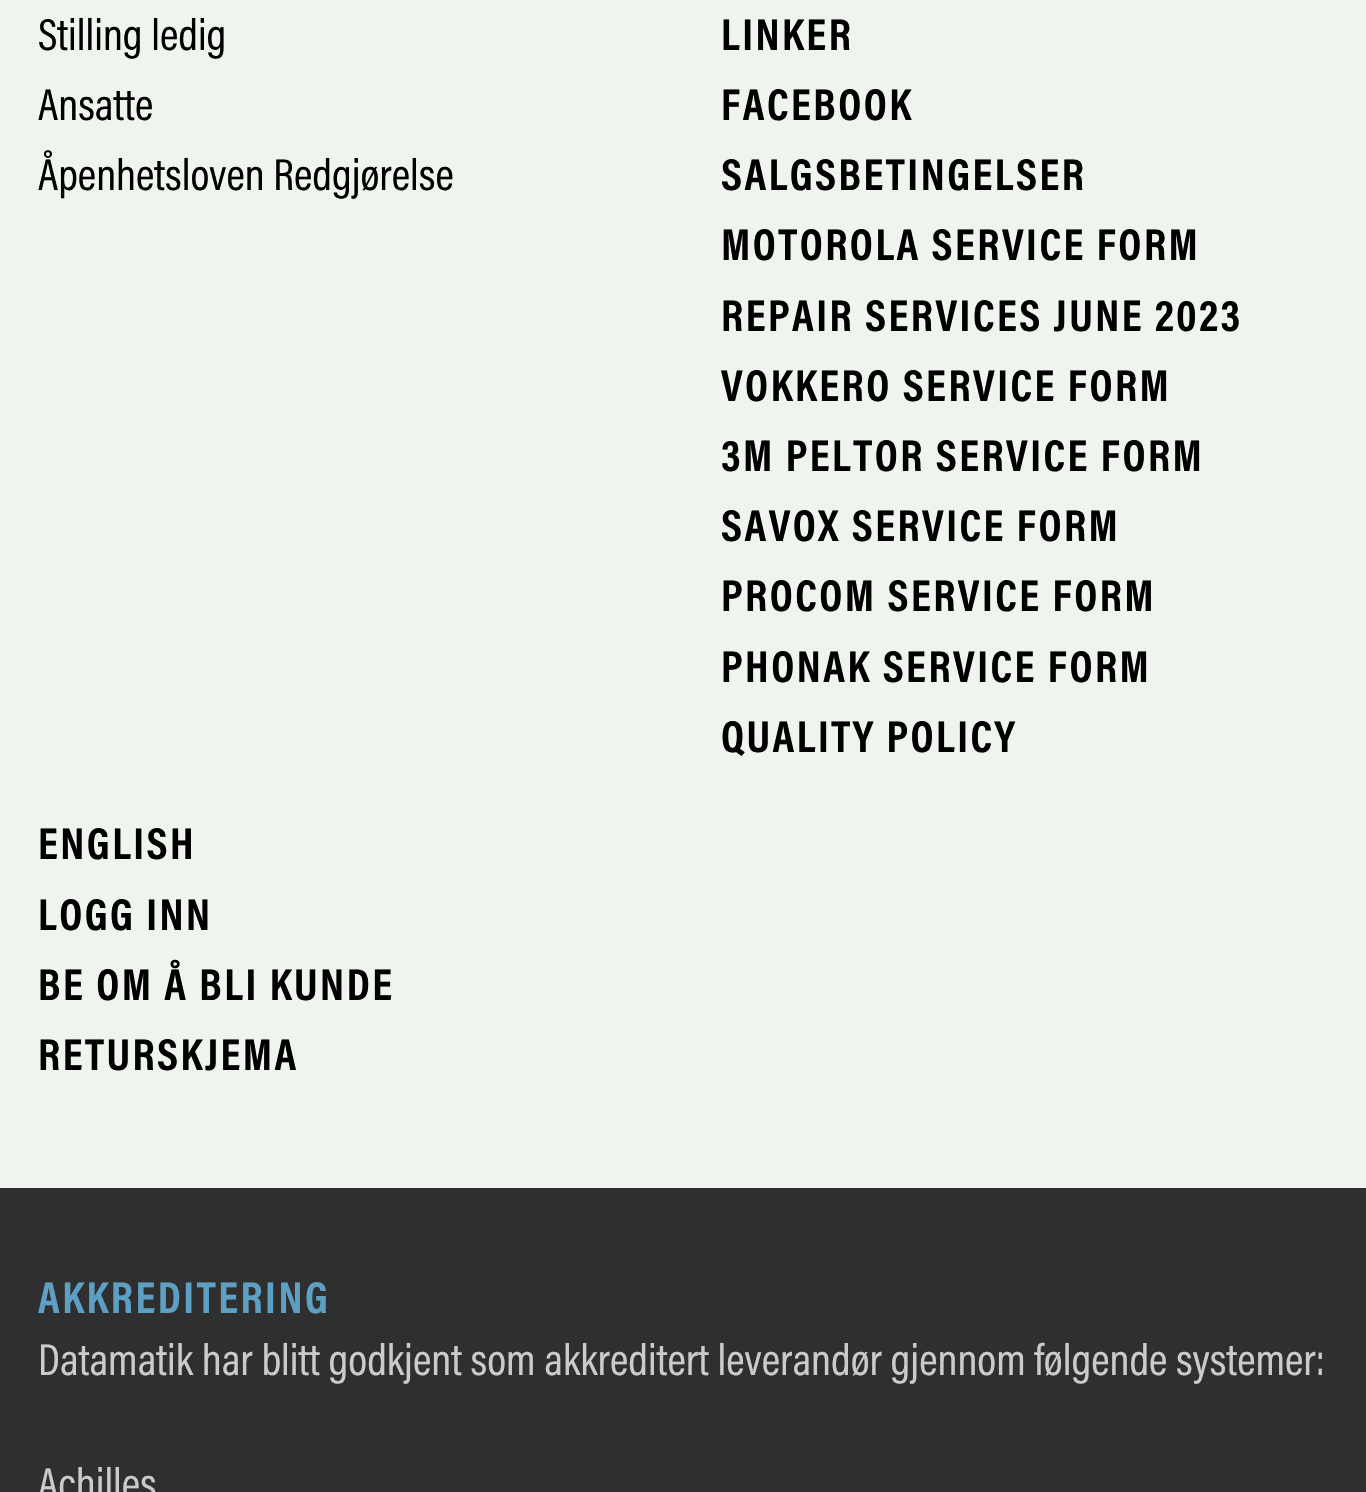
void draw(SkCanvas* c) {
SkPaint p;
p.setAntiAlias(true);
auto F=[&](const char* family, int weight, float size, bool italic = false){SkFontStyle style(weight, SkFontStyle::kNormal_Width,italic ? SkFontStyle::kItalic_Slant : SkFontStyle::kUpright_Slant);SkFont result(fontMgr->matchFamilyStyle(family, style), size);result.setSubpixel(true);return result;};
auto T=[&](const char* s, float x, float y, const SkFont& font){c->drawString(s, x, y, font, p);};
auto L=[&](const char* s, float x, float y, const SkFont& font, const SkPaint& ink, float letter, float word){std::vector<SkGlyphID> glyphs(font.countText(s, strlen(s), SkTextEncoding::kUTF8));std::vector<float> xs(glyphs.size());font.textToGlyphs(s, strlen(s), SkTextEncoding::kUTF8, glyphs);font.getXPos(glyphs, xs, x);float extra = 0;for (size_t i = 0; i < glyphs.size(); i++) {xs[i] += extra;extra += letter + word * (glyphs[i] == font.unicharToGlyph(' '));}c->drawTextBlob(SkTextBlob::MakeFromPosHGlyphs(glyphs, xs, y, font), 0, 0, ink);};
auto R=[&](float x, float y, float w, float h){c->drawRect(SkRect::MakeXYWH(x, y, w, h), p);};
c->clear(0xffeff5ee);
auto f1 = F("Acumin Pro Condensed",400,45);
p.setColor(0xff000000);
T("Stilling ledig",38,50,f1);
T("Ansatte",38,120,f1);
T("Åpenhetsloven Redgjørelse",38,190,f1);
auto f2 = F("Acumin Pro Condensed",700,45);
L("LINKER",721,50,f2,p,2.5,0);
L("FACEBOOK",721,120,f2,p,2.5,0);
L("SALGSBETINGELSER",721,190,f2,p,2.5,0);
L("MOTOROLA SERVICE FORM",721,260,f2,p,2.5,0);
L("REPAIR SERVICES JUNE 2023",721,331,f2,p,2.5,0);
L("VOKKERO SERVICE FORM",721,401,f2,p,2.5,0);
L("3M PELTOR SERVICE FORM",721,471,f2,p,2.5,0);
L("SAVOX SERVICE FORM",721,541,f2,p,2.5,0);
L("PROCOM SERVICE FORM",721,611,f2,p,2.5,0);
L("PHONAK SERVICE FORM",721,682,f2,p,2.5,0);
L("QUALITY POLICY",721,752,f2,p,2.5,0);
L("ENGLISH",38,859,f2,p,2.5,0);
L("LOGG INN",38,930,f2,p,2.5,0);
L("BE OM Å BLI KUNDE",38,1000,f2,p,2.5,0);
L("RETURSKJEMA",38,1070,f2,p,2.5,0);
p.setColor(0xff2f2f2f);
R(0,1188,1366,304);
p.setColor(0xff5da0c4);
L("AKKREDITERING",38,1313,f2,p,2.5,0);
p.setColor(0xffcbcbcb);
T("Datamatik har blitt godkjent som akkreditert leverandør gjennom følgende systemer:",38,1375,f1);
T("Achilles",38,1499,f1);
}
